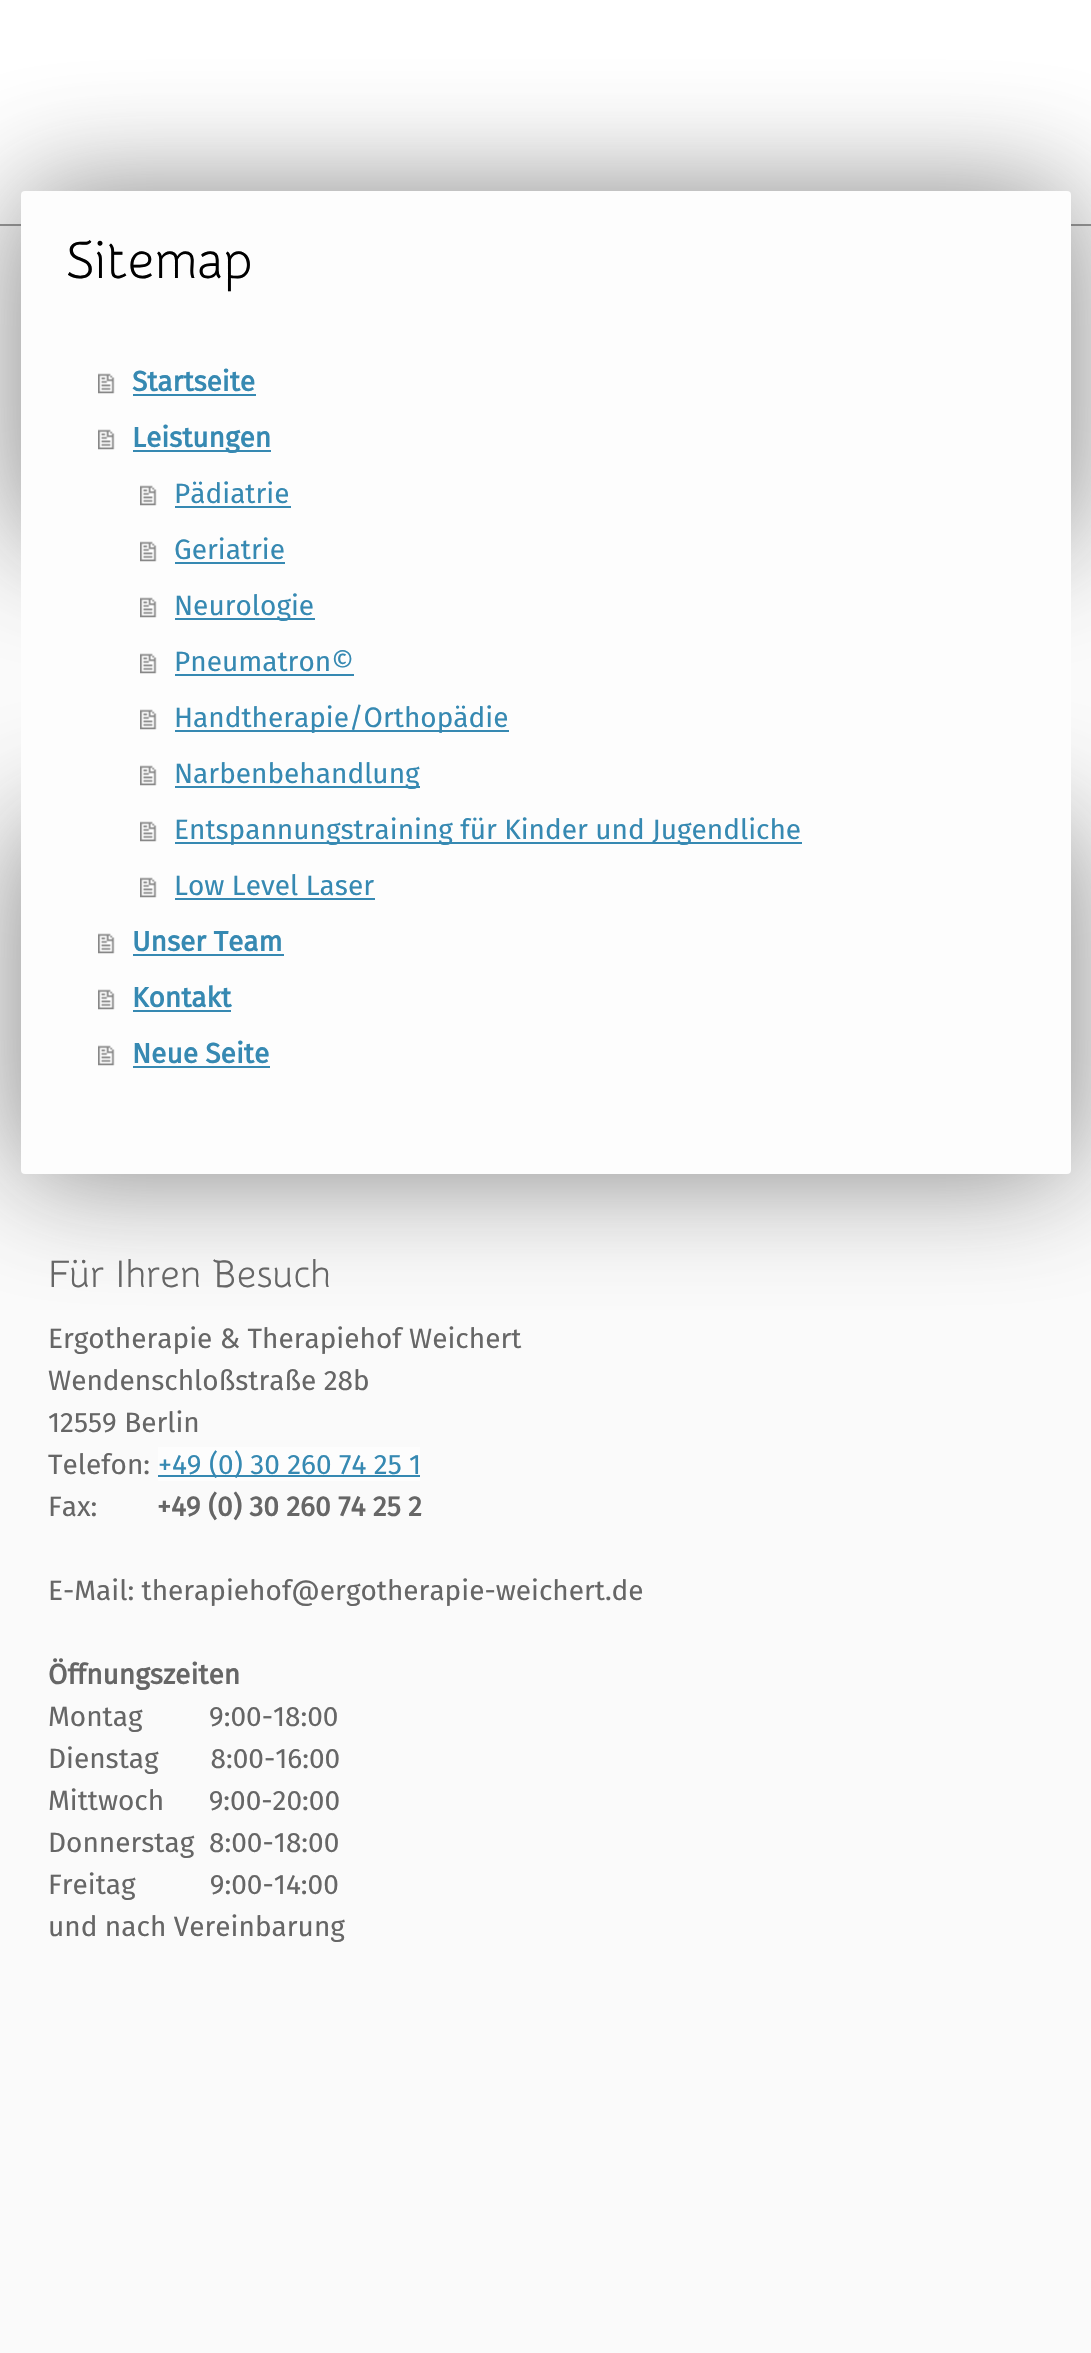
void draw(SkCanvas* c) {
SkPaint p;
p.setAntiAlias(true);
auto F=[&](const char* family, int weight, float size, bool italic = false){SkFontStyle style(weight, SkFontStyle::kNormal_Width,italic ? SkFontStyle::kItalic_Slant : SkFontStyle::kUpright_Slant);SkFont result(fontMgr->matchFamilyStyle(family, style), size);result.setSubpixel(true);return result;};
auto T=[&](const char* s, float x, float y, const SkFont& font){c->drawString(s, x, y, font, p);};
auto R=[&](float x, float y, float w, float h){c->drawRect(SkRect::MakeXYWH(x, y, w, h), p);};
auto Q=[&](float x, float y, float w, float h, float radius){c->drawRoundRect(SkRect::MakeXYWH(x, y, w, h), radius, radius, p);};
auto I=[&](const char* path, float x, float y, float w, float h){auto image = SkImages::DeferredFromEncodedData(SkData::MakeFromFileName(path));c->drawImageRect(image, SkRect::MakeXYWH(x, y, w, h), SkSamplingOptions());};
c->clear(0xffffffff);
p.setColor(0xfffafafa);
R(0,226,1091,2127);
p.setColor(0xff999999);
R(0,224,1091,2);
p.setColor(0x99333333);
p.setMaskFilter(SkMaskFilter::MakeBlur(kNormal_SkBlurStyle, 59.5));
c->drawRect(SkRect::MakeXYWH(21,191,1050,350),p);
p.setMaskFilter(nullptr);
p.setMaskFilter(SkMaskFilter::MakeBlur(kNormal_SkBlurStyle, 59.5));
c->drawRect(SkRect::MakeXYWH(21,824,1050,350),p);
p.setMaskFilter(nullptr);
p.setColor(0xfffdfdfd);
Q(21,191,1050,983,4);
auto f1 = F("Snippet",400,52.5);
p.setColor(0xff000000);
T("Sitemap",66,278,f1);
I("1.png",98,373,17,21);
auto f2 = F("Fira Sans",700,28);
p.setColor(0xff3689b2);
T("Startseite",132,391,f2);
R(133,394,123,2);
I("1.png",98,429,17,21);
R(133,450,138,2);
T("Leistungen",132,447,f2);
I("2.png",140,485,17,21);
auto f3 = F("Fira Sans",400,28);
T("Pädiatrie",174,503,f3);
R(175,506,116,2);
I("2.png",140,541,17,21);
T("Geriatrie",174,559,f3);
R(175,562,110,2);
I("2.png",140,597,17,21);
R(175,618,140,2);
T("Neurologie",174,615,f3);
I("2.png",140,653,17,21);
T("Pneumatron©",174,671,f3);
R(175,674,179,2);
I("2.png",140,709,17,21);
R(175,730,334,2);
T("Handtherapie/Orthopädie",174,727,f3);
I("2.png",140,765,17,21);
R(175,786,245,2);
T("Narbenbehandlung",174,783,f3);
I("2.png",140,821,17,21);
R(175,842,627,2);
T("Entspannungstraining für Kinder und Jugendliche",174,839,f3);
I("2.png",140,877,17,21);
T("Low Level Laser",174,895,f3);
R(175,898,200,2);
I("1.png",98,933,17,21);
T("Unser Team",132,951,f2);
R(133,954,151,2);
I("1.png",98,989,17,21);
T("Kontakt",132,1007,f2);
R(133,1010,98,2);
I("1.png",98,1045,17,21);
T("Neue Seite",132,1063,f2);
R(133,1066,137,2);
auto f4 = F("Snippet",400,38.5);
p.setColor(0xff666666);
T("Für Ihren Besuch",48,1287,f4);
T("Ergotherapie & Therapiehof Weichert",48,1348,f3);
T("Wendenschloßstraße 28b",48,1390,f3);
T("12559 Berlin",48,1432,f3);
T("Telefon:",48,1474,f3);
p.setColor(0xfffdfdfd);
R(158,1447,262,34);
p.setColor(0xff3689b2);
R(158,1475,262,2);
T("+49 (0) 30 260 74 25 1",158,1474,f3);
p.setColor(0xff666666);
T("Fax:",48,1516,f3);
T("+49 (0) 30 260 74 25 2",157,1516,f2);
T("E-Mail: therapiehof@ergotherapie-weichert.de",48,1600,f3);
T("Öffnungszeiten",48,1684,f2);
T("Montag",48,1726,f3);
T("9:00-18:00",209,1726,f3);
T("Dienstag       8:00-16:00",48,1768,f3);
T("Mittwoch      9:00-20:00",48,1810,f3);
T("Donnerstag  8:00-18:00",48,1852,f3);
T("Freitag          9:00-14:00",48,1894,f3);
T("und nach Vereinbarung",48,1936,f3);
}
